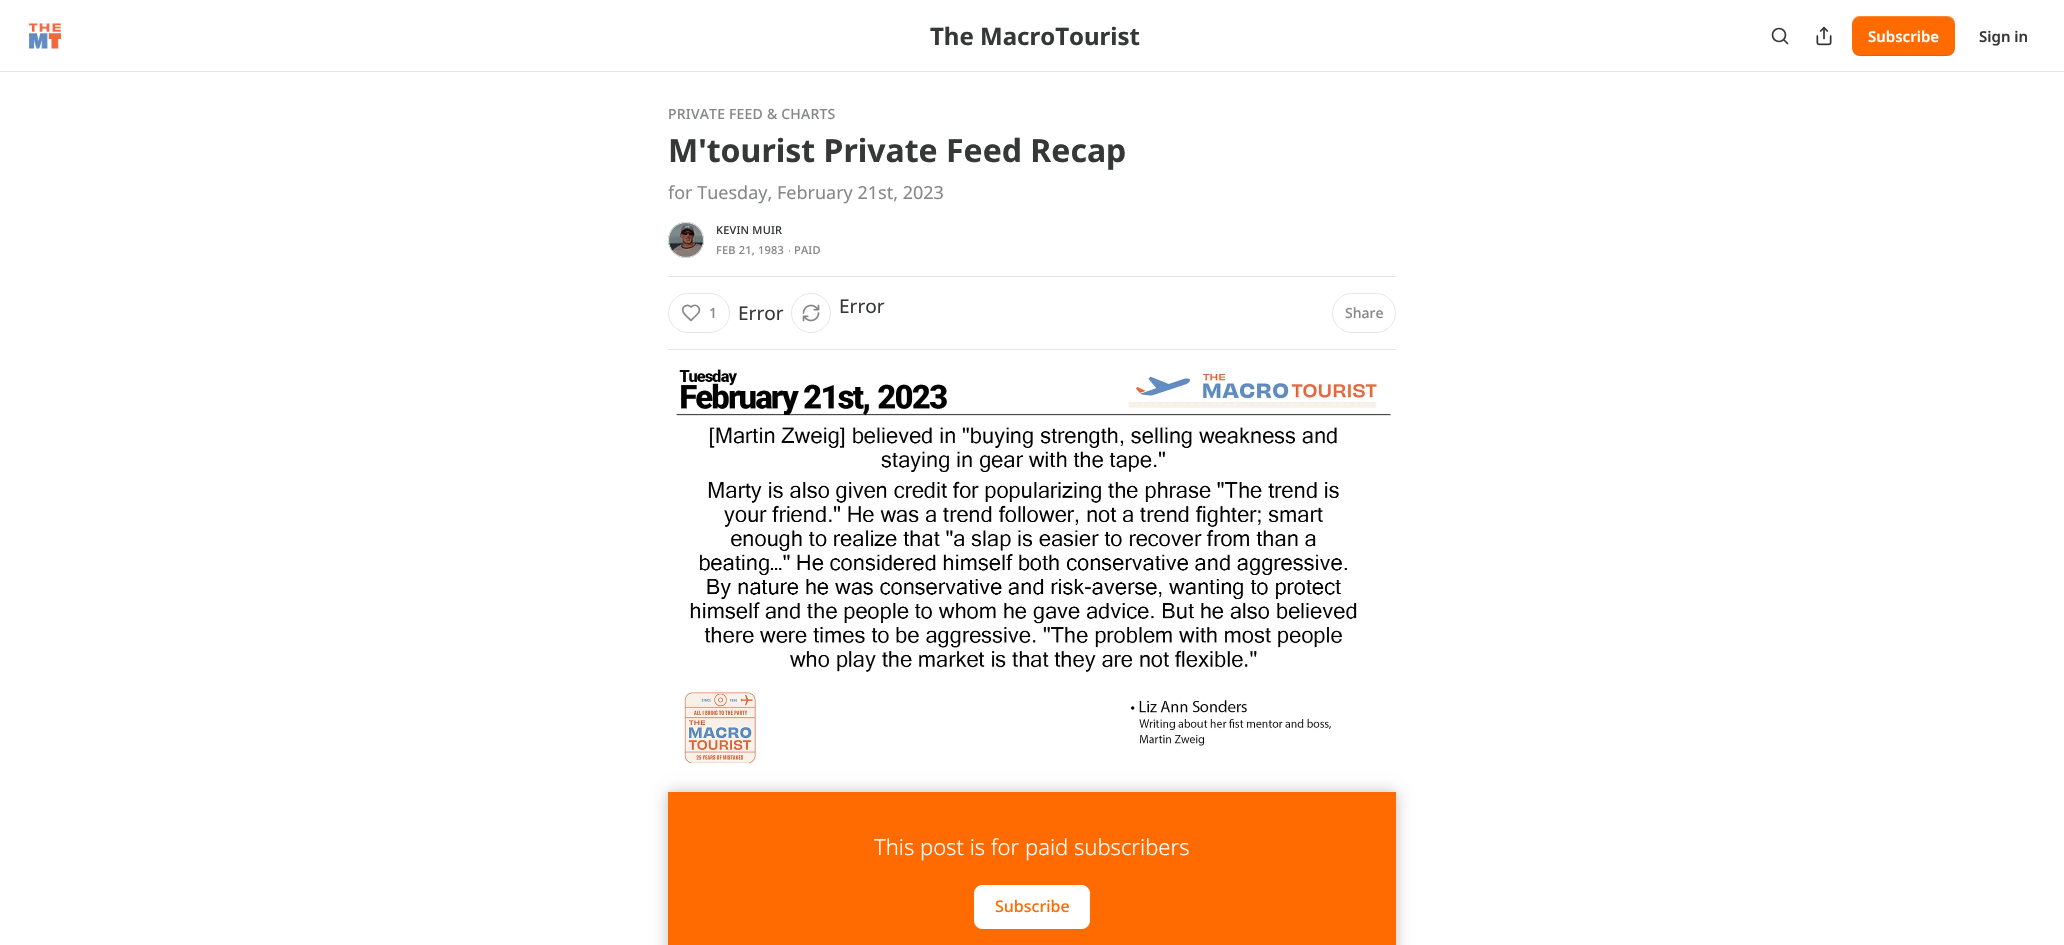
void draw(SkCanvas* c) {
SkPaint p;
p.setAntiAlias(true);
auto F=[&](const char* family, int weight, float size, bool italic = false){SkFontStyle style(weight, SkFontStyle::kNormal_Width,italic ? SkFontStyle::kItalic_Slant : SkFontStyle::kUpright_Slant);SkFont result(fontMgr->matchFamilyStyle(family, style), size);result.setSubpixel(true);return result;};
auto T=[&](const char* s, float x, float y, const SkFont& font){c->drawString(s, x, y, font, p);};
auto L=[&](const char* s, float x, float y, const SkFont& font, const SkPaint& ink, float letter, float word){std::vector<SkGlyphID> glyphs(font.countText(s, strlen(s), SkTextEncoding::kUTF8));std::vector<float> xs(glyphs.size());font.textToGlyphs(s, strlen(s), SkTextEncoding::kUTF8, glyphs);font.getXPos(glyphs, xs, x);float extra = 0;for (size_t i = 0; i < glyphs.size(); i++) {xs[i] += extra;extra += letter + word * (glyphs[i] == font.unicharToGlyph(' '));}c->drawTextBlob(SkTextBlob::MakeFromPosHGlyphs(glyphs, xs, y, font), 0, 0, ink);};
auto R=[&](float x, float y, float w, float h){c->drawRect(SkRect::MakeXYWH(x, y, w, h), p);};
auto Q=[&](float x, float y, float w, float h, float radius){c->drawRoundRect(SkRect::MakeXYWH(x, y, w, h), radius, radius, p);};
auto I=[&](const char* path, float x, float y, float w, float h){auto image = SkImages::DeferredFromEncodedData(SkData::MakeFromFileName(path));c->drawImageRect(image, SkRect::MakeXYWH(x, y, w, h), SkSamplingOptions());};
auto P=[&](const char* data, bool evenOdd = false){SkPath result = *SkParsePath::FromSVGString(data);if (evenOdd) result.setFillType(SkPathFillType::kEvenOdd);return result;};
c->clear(0xffffffff);
p.setColor(0xffe6e6e6);
R(0,71,2064,1);
I("1.png",29,23,32,26);
auto f1 = F("Noto Sans",700,24);
p.setColor(0xff363737);
T("The MacroTourist",930,45,f1);
p.setStroke(true);
p.setStrokeWidth(1.7);
c->drawCircle(1779,35,6.5,p);
p.setStrokeCap(SkPaint::kRound_Cap);
p.setStrokeJoin(SkPaint::kRound_Join);
c->drawPath(P("M1787.5 43.5l-3.5-3.5"),p);
I("2.png",1816,26,16,20);
p.setStroke(false);
p.setColor(0xffff6b00);
Q(1852,16,103,40,8);
p.setColor(0x1a000000);
c->drawPath(P("M1852 47c0 12 14 9 22 9h58c9 0 23 3 23-9c0 4-4 8-8 8h-87c-4 0-8-4-8-8z"),p);
p.setColor(0x33ffffff);
c->drawPath(P("M1860 17h87c4 0 8 4 8 8c0-12-14-9-23-9h-58c-8 0-22-3-22 9c0-4 4-8 8-8z"),p);
auto f2 = F("Noto Sans",600,15);
p.setColor(0xffffffff);
T("Subscribe",1868,42,f2);
p.setColor(0xff363737);
T("Sign in",1979,42,f2);
auto f3 = F("Noto Sans",500,14);
p.setColor(0xff868787);
L("PRIVATE FEED & CHARTS",668,119,f3,p,.2,0);
auto f4 = F("Noto Sans",700,32);
p.setColor(0xff363737);
T("M'tourist Private Feed Recap",668,162,f4);
auto f5 = F("Noto Sans",400,18);
p.setColor(0xff868787);
T("for Tuesday, February 21st, 2023",668,199,f5);
p.setStroke(true);
p.setStrokeWidth(1);
p.setStrokeCap(SkPaint::kButt_Cap);
p.setStrokeJoin(SkPaint::kMiter_Join);
p.setColor(0xffe6e6e6);
c->drawCircle(686,240,17.5,p);
I("3.png",668,222,36,36);
c->drawCircle(686,240,17.5,p);
auto f6 = F("Noto Sans",500,11);
p.setStroke(false);
p.setColor(0xff363737);
L("KEVIN MUIR",716,234,f6,p,.2,0);
p.setColor(0xff868787);
L("FEB 21, 1983",716,254,f6,p,.2,0);
auto f7 = F("Liberation Sans",400,11);
L("∙",788,254,f7,p,.2,0);
L("PAID",794,254,f6,p,.2,0);
p.setColor(0xffe6e6e6);
R(668,276,728,1);
R(668,349,728,1);
p.setStroke(true);
c->drawRoundRect(SkRect::MakeXYWH(668.5,293.5,61,39),19.5,19.5,p);
p.setStrokeWidth(1.7);
p.setStrokeCap(SkPaint::kRound_Cap);
p.setStrokeJoin(SkPaint::kRound_Join);
p.setColor(0xff868787);
c->drawPath(P("M697 314.5c6-6-1-12-6-7.5c-3.5-3.5-9.5-.5-8 4.5c1 3 6 7 8 9z"),p);
p.setStroke(false);
T("1",709,318,f3);
auto f8 = F("Noto Sans",400,19);
p.setColor(0xff363737);
T("Error",738,320,f8);
p.setStroke(true);
p.setStrokeWidth(1);
p.setStrokeCap(SkPaint::kButt_Cap);
p.setStrokeJoin(SkPaint::kMiter_Join);
p.setColor(0xffe6e6e6);
c->drawCircle(811,313,19.5,p);
I("4.png",802,304,18,18);
p.setStroke(false);
p.setColor(0xff363737);
T("Error",839,313,f8);
p.setStroke(true);
p.setColor(0xffe6e6e6);
c->drawRoundRect(SkRect::MakeXYWH(1332.5,293.5,63,39),19.5,19.5,p);
p.setStroke(false);
p.setColor(0xff868787);
T("Share",1345,318,f3);
I("5.png",676,368,715,398);
p.setColor(0xffff6b00);
R(668,792,728,153);
p.setColor(0xffffffff);
c->drawRoundRect(SkRect::MakeXYWH(974.5,885.5,115,43),7.5,7.5,p);
p.setStroke(true);
c->drawRoundRect(SkRect::MakeXYWH(974.5,885.5,115,43),7.5,7.5,p);
c->save();
c->clipPath(P("M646 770h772v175h-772zm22 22h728v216h-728z",true),true);
p.setStroke(false);
p.setColor(0x40000000);
p.setMaskFilter(SkMaskFilter::MakeBlur(kNormal_SkBlurStyle, 7));
c->drawRect(SkRect::MakeXYWH(668,792,728,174),p);
p.setMaskFilter(nullptr);
c->restore();
auto f9 = F("Noto Sans",300,22);
p.setColor(0xffffffff);
T("This post is for paid subscribers",874,855,f9);
auto f10 = F("Noto Sans",500,16);
p.setColor(0xffff6b00);
T("Subscribe",995,912,f10);
}
